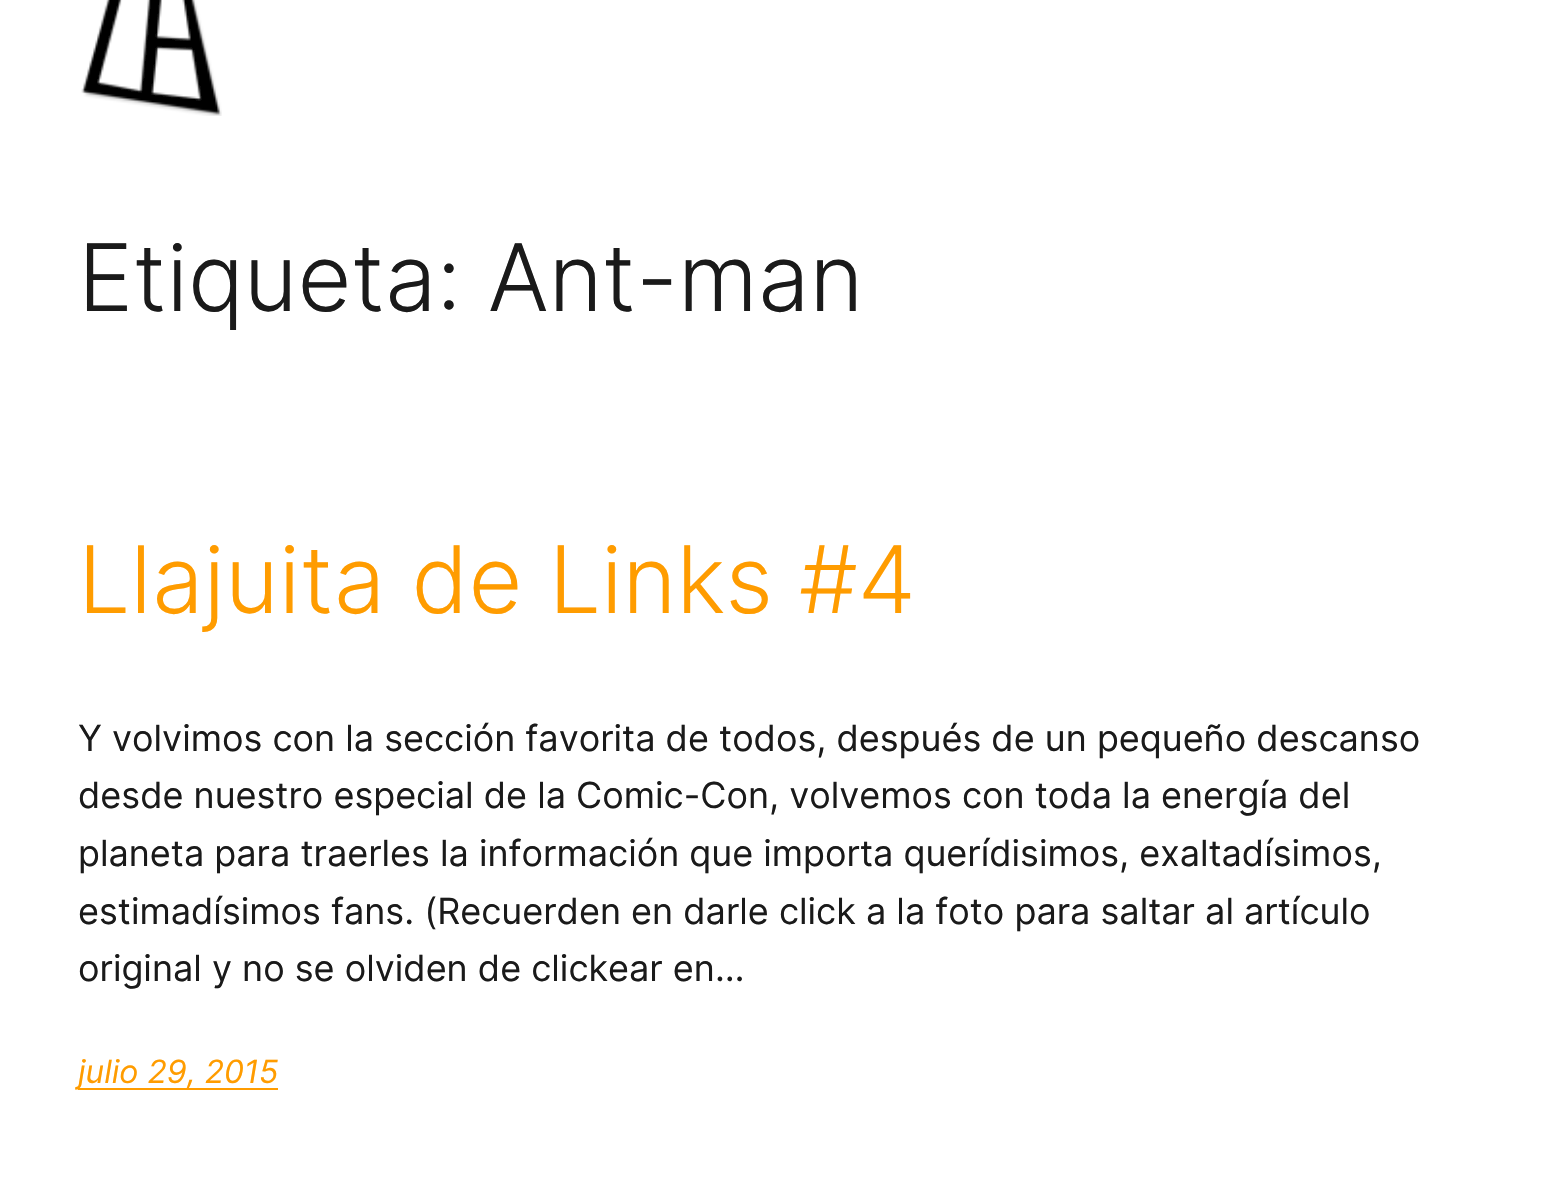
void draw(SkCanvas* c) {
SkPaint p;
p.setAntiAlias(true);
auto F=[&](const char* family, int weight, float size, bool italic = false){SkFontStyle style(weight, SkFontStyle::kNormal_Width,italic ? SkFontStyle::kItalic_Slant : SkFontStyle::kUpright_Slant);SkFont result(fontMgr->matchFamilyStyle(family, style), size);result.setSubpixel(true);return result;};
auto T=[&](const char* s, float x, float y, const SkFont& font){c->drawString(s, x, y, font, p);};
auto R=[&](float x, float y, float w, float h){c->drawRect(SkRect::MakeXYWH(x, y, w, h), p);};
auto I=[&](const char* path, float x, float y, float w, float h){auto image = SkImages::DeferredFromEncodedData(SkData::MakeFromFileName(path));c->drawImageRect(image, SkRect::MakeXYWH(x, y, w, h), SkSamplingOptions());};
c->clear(0xffffffff);
I("1.png",81,0,141,116);
auto f1 = F("Inter",300,93);
p.setColor(0xff1a1a1a);
T("Etiqueta: Ant-man",78,311,f1);
p.setColor(0xffff9c00);
T("Llajuita de Links #4",78,613,f1);
auto f2 = F("Inter",400,36);
p.setColor(0xff1a1a1a);
T("Y volvimos con la sección favorita de todos, después de un pequeño descanso",78,751,f2);
T("desde nuestro especial de la Comic-Con, volvemos con toda la energía del",78,808,f2);
T("planeta para traerles la información que importa querídisimos, exaltadísimos,",78,866,f2);
T("estimadísimos fans. (Recuerden en darle click a la foto para saltar al artículo",78,924,f2);
T("original y no se olviden de clickear en…",78,981,f2);
p.setColor(0xffff9c00);
R(78,1088,200,2);
auto f3 = F("Inter",400,32,true);
T("julio 29, 2015",78,1083,f3);
}
